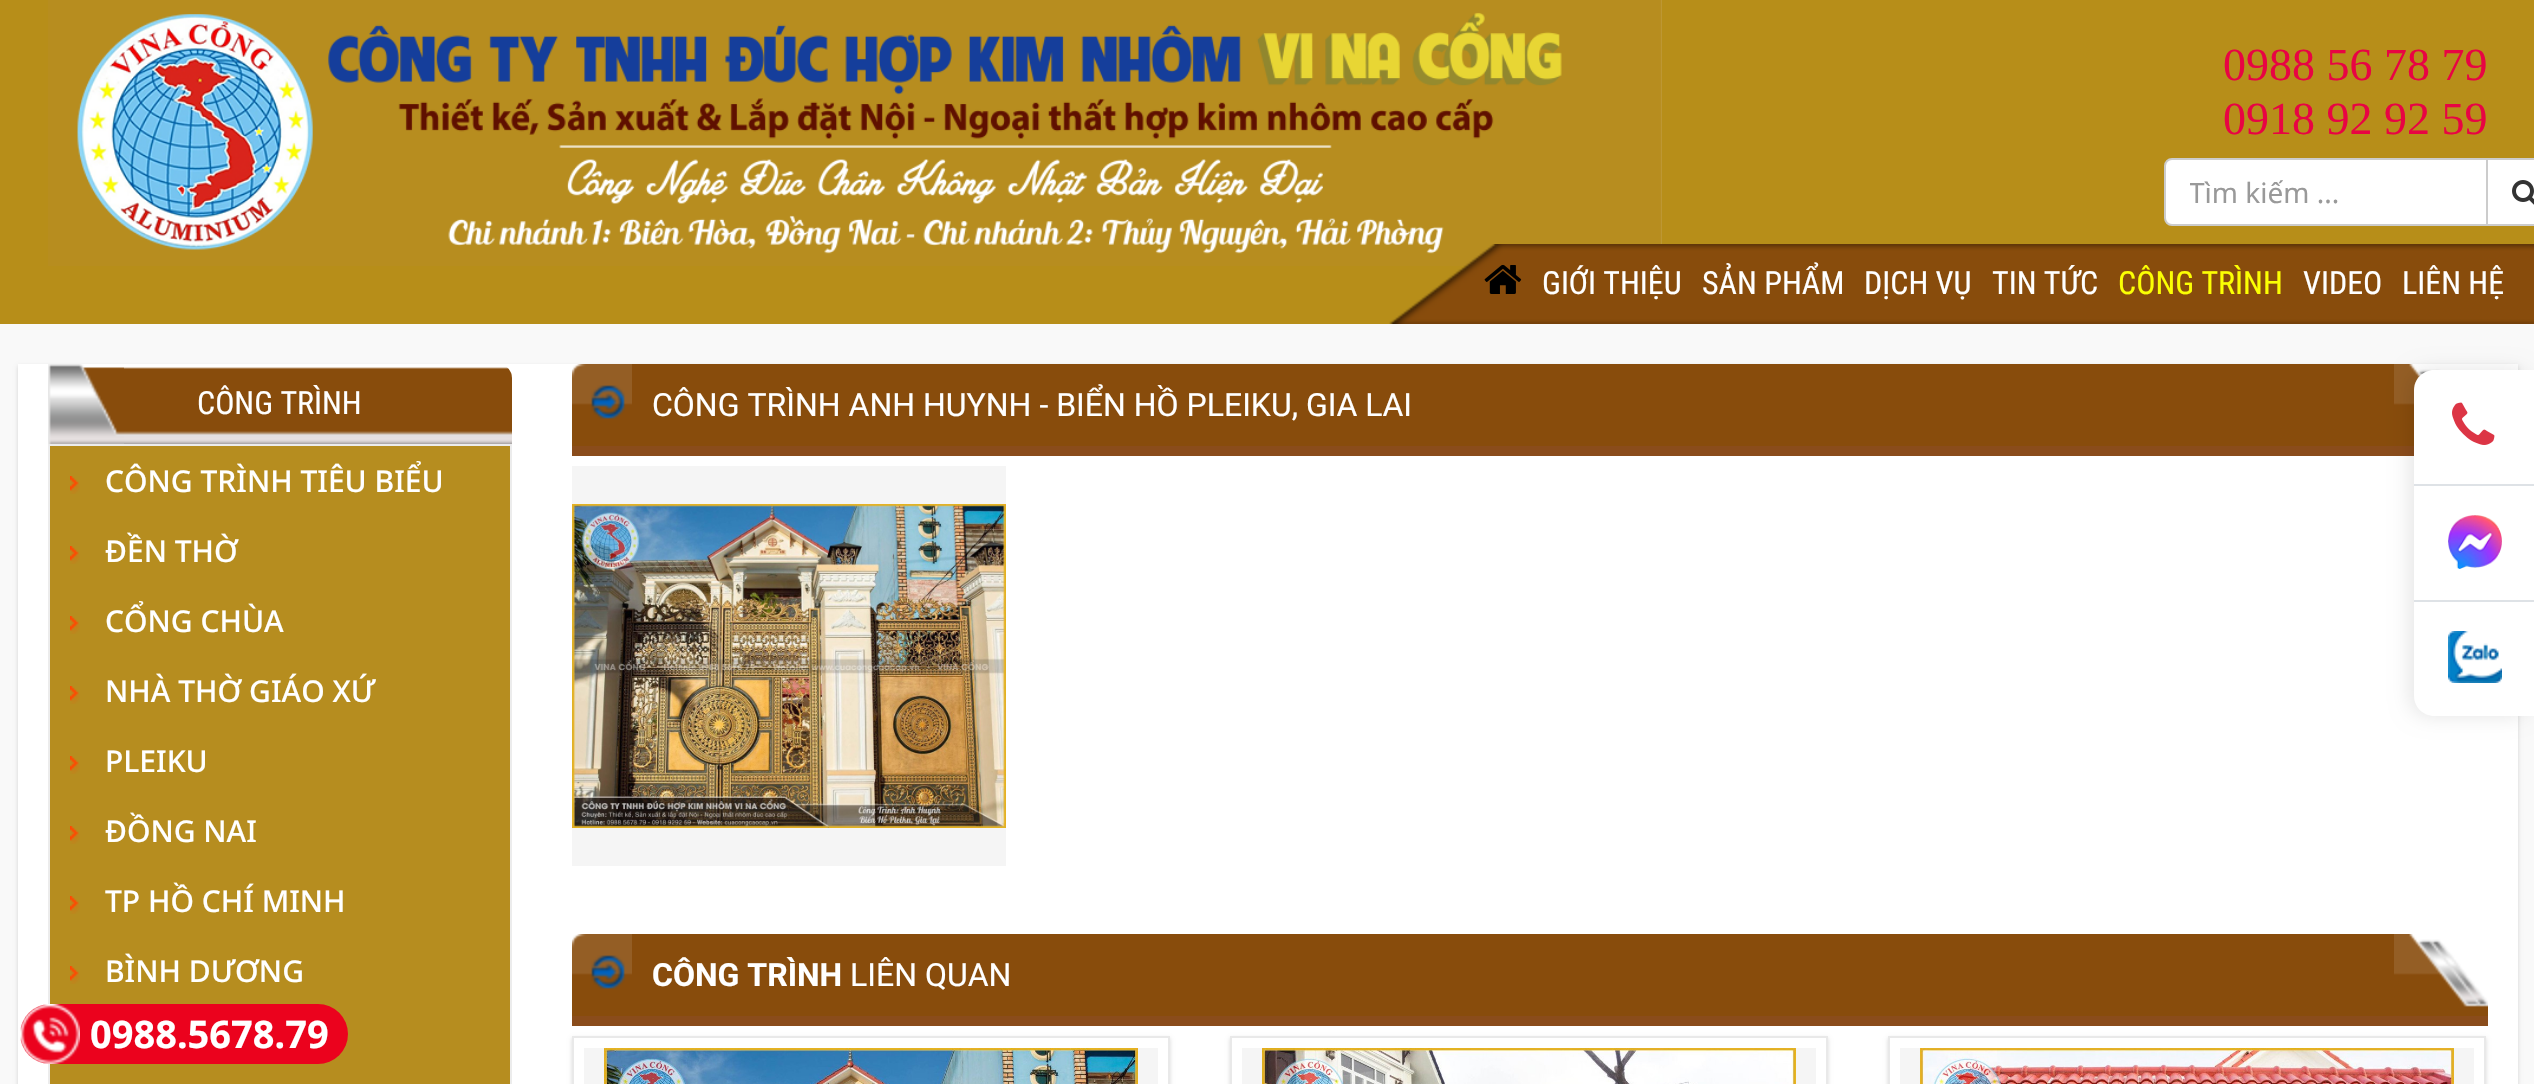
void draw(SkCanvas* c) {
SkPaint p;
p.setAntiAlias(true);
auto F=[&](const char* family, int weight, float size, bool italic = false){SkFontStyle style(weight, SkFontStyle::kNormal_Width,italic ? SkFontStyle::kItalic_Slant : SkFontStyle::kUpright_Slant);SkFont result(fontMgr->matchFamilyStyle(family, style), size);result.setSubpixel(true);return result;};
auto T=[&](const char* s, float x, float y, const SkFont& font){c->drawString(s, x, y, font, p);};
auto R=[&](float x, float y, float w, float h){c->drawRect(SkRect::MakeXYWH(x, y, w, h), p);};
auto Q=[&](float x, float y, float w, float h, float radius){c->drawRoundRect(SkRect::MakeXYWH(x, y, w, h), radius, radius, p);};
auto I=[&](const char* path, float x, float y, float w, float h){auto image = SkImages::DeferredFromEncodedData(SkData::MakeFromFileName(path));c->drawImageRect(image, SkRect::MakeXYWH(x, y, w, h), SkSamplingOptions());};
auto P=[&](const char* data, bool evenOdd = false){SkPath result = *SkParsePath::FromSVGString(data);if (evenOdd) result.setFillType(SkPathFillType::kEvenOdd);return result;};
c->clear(0xfff9f9f9);
p.setColor(0xffb78e19);
R(0,0,2534,324);
I("1.png",48,0,1614,266);
auto f1 = F("Liberation Serif",400,46);
p.setColor(0xffe80443);
T("0988 56 78 79",2223,80,f1);
T("0918 92 92 59",2223,134,f1);
p.setColor(0xffffffff);
c->drawRect(SkRect::MakeXYWH(2487,159,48,66),p);
p.setStroke(true);
p.setStrokeWidth(2);
p.setColor(0xffcccccc);
c->drawRect(SkRect::MakeXYWH(2487,159,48,66),p);
p.setStroke(false);
p.setColor(0xffffffff);
c->drawPath(P("M2172 159h315v66h-315c-4 0-7-3-7-7v-52c0-4 3-7 7-7z"),p);
p.setStroke(true);
p.setColor(0xffcccccc);
c->drawPath(P("M2172 159h315v66h-315c-4 0-7-3-7-7v-52c0-4 3-7 7-7z"),p);
c->save();
c->clipRect(SkRect::MakeXYWH(2190,174,272,38));
auto f2 = F("Noto Sans",400,28);
p.setStroke(false);
p.setColor(0xff999999);
T("Tìm kiếm ...",2189,203,f2);
c->restore();
I("2.png",2512,180,22,25);
I("3.png",1389,244,1145,80);
I("4.png",1484,264,38,30);
auto f3 = F("Roboto Condensed",400,32);
p.setColor(0xffffffff);
T("GIỚI THIỆU",1542,294,f3);
T("SẢN PHẨM",1702,294,f3);
T("DỊCH VỤ",1864,294,f3);
T("TIN TỨC",1992,294,f3);
p.setColor(0xfffbff03);
T("CÔNG TRÌNH",2118,294,f3);
p.setColor(0xffffffff);
T("VIDEO",2303,294,f3);
T("LIÊN HỆ",2402,294,f3);
p.setColor(0x26000000);
p.setMaskFilter(SkMaskFilter::MakeBlur(kNormal_SkBlurStyle, 2));
c->drawRect(SkRect::MakeXYWH(18,366,2500,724),p);
p.setMaskFilter(nullptr);
p.setColor(0xffffffff);
R(18,364,2500,720);
I("5.png",81,367,431,77);
I("6.png",48,364,76,80);
auto f4 = F("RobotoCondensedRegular",400,32);
T("CÔNG TRÌNH",197,414,f4);
p.setStroke(true);
p.setColor(0xffececec);
c->drawRect(SkRect::MakeXYWH(49,445,462,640),p);
p.setStroke(false);
p.setColor(0xffb68d1f);
R(50,446,460,638);
I("7.png",70,476,10,18);
auto f5 = F("Noto Sans",500,30);
p.setColor(0xffffffff);
T("CÔNG TRÌNH TIÊU BIỂU",105,492,f5);
I("7.png",70,546,10,18);
T("ĐỀN THỜ",105,562,f5);
I("7.png",70,616,10,18);
T("CỔNG CHÙA",105,632,f5);
I("7.png",70,686,10,18);
T("NHÀ THỜ GIÁO XỨ",105,702,f5);
I("7.png",70,756,10,18);
T("PLEIKU",105,772,f5);
I("7.png",70,826,10,18);
T("ĐỒNG NAI",105,842,f5);
I("7.png",70,896,10,18);
T("TP HỒ CHÍ MINH",105,912,f5);
I("7.png",70,966,10,18);
T("BÌNH DƯƠNG",105,982,f5);
p.setColor(0xff8a4c1b);
R(572,446,1842,10);
p.setColor(0xff884c0c);
R(572,364,1822,82);
I("8.png",572,364,60,55);
auto f6 = F("Roboto",400,32);
p.setColor(0xffffffff);
T("CÔNG TRÌNH ANH HUYNH - BIỂN HỒ PLEIKU, GIA LAI",652,416,f6);
I("9.png",2394,364,47,82);
p.setColor(0xfff5f5f5);
R(572,466,434,400);
I("10.png",572,504,434,324);
p.setColor(0xff8a4c1b);
R(572,1016,1916,10);
p.setColor(0xff884c0c);
R(572,934,1822,82);
I("8.png",572,934,60,55);
auto f7 = F("Roboto",700,32);
p.setColor(0xffffffff);
T("CÔNG TRÌNH",652,986,f7);
T("LIÊN QUAN",850,986,f6);
I("11.png",2394,934,94,82);
c->save();
c->clipPath(P("M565 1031h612v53h-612zm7 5h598v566h-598z",true),true);
p.setColor(0x26000000);
p.setMaskFilter(SkMaskFilter::MakeBlur(kNormal_SkBlurStyle, 2));
c->drawRect(SkRect::MakeXYWH(572,1038,598,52),p);
p.setMaskFilter(nullptr);
c->restore();
p.setStroke(true);
p.setColor(0xffe9e9e9);
c->drawRect(SkRect::MakeXYWH(573,1037,596,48),p);
p.setStroke(false);
p.setColor(0xfff5f5f5);
R(584,1048,574,36);
I("12.png",604,1048,534,36);
c->save();
c->clipPath(P("M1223 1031h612v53h-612zm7 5h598v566h-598z",true),true);
p.setColor(0x26000000);
p.setMaskFilter(SkMaskFilter::MakeBlur(kNormal_SkBlurStyle, 2));
c->drawRect(SkRect::MakeXYWH(1230,1038,598,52),p);
p.setMaskFilter(nullptr);
c->restore();
p.setStroke(true);
p.setColor(0xffe9e9e9);
c->drawRect(SkRect::MakeXYWH(1231,1037,596,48),p);
p.setStroke(false);
p.setColor(0xfff5f5f5);
R(1242,1048,574,36);
I("13.png",1262,1048,534,36);
c->save();
c->clipPath(P("M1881 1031h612v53h-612zm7 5h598v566h-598z",true),true);
p.setColor(0x26000000);
p.setMaskFilter(SkMaskFilter::MakeBlur(kNormal_SkBlurStyle, 2));
c->drawRect(SkRect::MakeXYWH(1888,1038,598,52),p);
p.setMaskFilter(nullptr);
c->restore();
p.setStroke(true);
p.setColor(0xffe9e9e9);
c->drawRect(SkRect::MakeXYWH(1889,1037,596,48),p);
p.setStroke(false);
p.setColor(0xfff5f5f5);
R(1900,1048,574,36);
I("14.png",1920,1048,534,36);
p.setColor(0x1a000000);
p.setMaskFilter(SkMaskFilter::MakeBlur(kNormal_SkBlurStyle, 10));
c->drawRoundRect(SkRect::MakeXYWH(2410,370,120,346),20,20,p);
p.setMaskFilter(nullptr);
p.setColor(0xffffffff);
c->drawPath(P("M2434 370h100v346h-100c-11 0-20-9-20-20v-306c0-11 9-20 20-20z"),p);
p.setColor(0xffdee2e6);
R(2414,484,120,2);
I("15.png",2452,402,43,43);
R(2414,600,120,2);
I("16.png",2448,515,54,54);
I("17.png",2448,631,54,52);
p.setColor(0xffeb021d);
Q(20,1004,328,60,30);
I("18.png",20,1004,60,60);
auto f8 = F("Noto Sans",700,38);
p.setColor(0xffffffff);
T("0988.5678.79",90,1048,f8);
}
